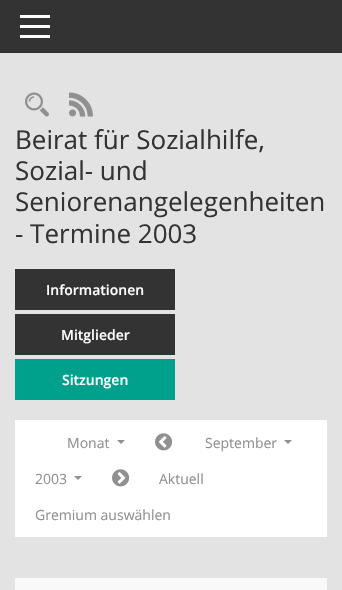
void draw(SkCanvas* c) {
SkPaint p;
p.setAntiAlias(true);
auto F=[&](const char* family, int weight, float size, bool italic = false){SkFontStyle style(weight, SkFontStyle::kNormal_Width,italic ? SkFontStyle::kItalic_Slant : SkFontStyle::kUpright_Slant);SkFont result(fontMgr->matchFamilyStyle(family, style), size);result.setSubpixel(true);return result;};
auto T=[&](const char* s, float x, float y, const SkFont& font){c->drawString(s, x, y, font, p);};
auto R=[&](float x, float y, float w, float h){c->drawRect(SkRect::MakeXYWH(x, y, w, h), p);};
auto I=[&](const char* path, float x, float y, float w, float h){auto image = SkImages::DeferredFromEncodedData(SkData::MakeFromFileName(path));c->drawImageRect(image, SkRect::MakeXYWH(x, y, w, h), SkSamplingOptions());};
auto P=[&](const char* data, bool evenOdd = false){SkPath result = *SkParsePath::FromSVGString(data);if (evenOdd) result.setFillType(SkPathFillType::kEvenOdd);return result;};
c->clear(0xffe3e3e3);
p.setColor(0xff333333);
R(0,0,342,53);
p.setColor(0xffffffff);
R(20,15,30,3);
R(20,25,30,3);
R(20,35,30,3);
I("1.png",25,92,24,25);
I("2.png",69,92,24,25);
auto f1 = F("Open Sans",400,26);
p.setColor(0xff333333);
T("Beirat für Sozialhilfe,",15,149,f1);
T("Sozial- und",15,180,f1);
T("Seniorenangelegenheiten",15,211,f1);
T("- Termine 2003",15,243,f1);
p.setColor(0xffdee2e6);
R(175,399,152,1);
p.setColor(0xff333333);
R(15,269,160,41);
auto f2 = F("Open Sans",600,14);
p.setColor(0xffffffff);
T("Informationen",46,295,f2);
p.setColor(0xff333333);
R(15,314,160,41);
p.setColor(0xffffffff);
T("Mitglieder",61,340,f2);
p.setColor(0xff00a18c);
R(15,359,160,41);
p.setColor(0xffffffff);
T("Sitzungen",62,385,f2);
R(15,420,312,117);
auto f3 = F("Open Sans",400,14);
p.setColor(0xff909090);
T("Monat",67,448,f3);
c->drawPath(P("M117 440h8l-4 4z"),p);
I("3.png",155,433,18,18);
T("September",205,448,f3);
c->drawPath(P("M284 440h8l-4 4z"),p);
T("2003",35,484,f3);
c->drawPath(P("M74 476h8l-4 4z"),p);
I("4.png",112,469,18,18);
T("Aktuell",159,484,f3);
T("Gremium auswählen",35,520,f3);
p.setColor(0xfff9f9f9);
R(15,578,312,12);
}
